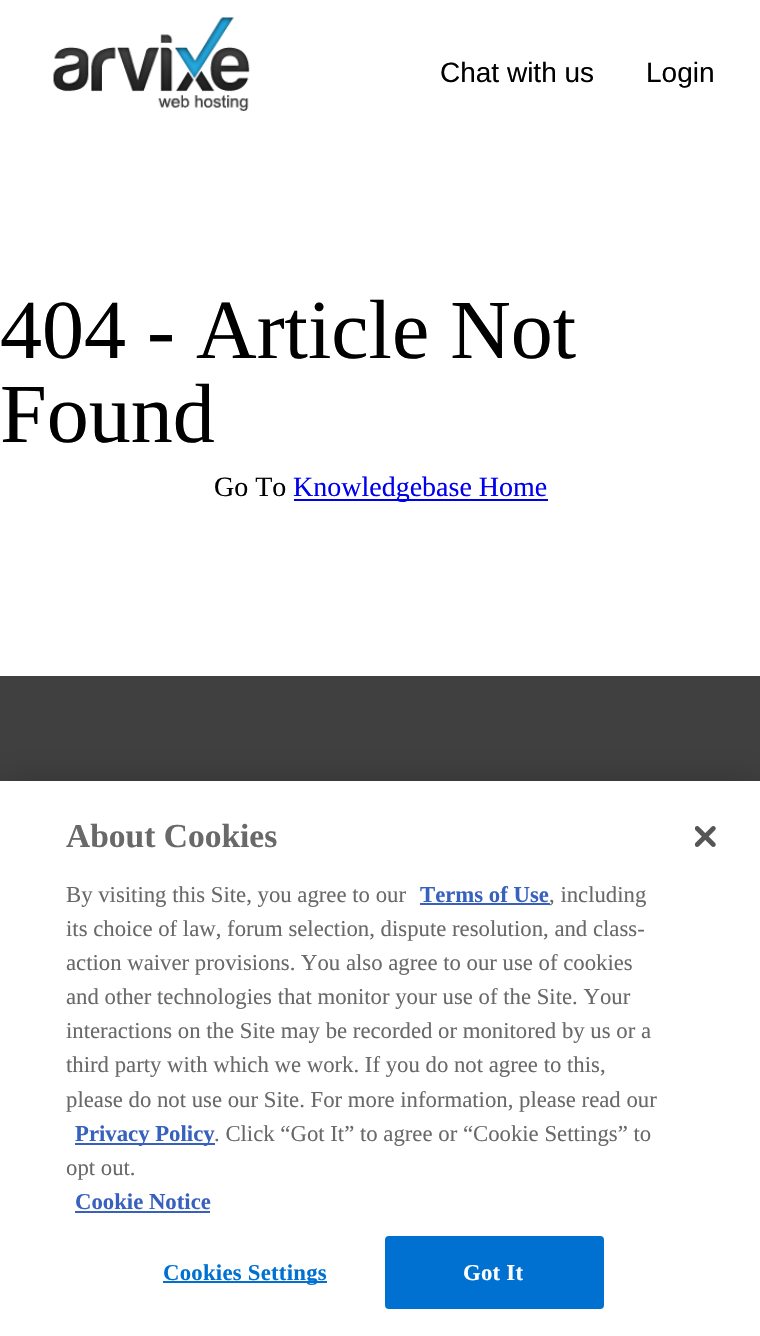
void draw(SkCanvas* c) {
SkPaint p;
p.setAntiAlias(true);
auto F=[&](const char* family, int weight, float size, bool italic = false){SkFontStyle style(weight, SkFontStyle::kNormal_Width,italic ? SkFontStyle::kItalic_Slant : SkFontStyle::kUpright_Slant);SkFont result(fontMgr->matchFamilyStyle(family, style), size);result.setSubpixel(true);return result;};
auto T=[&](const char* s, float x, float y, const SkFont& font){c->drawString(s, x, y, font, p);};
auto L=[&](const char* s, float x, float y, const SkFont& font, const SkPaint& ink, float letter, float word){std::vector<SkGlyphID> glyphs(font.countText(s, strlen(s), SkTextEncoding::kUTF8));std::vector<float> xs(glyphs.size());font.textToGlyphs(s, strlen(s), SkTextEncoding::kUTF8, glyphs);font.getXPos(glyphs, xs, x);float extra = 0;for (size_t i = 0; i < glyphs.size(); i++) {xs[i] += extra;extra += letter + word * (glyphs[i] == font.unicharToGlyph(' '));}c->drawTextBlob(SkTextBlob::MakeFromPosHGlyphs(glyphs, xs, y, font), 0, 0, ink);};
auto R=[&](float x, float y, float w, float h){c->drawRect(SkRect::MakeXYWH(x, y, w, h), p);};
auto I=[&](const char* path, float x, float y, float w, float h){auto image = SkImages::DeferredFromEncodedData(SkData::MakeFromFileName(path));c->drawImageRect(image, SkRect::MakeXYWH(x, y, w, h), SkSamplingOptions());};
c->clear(0xffffffff);
I("1.png",53,17,197,94);
auto f1 = F("Liberation Sans",400,28);
p.setColor(0xff000000);
T("Chat with us",440,82,f1);
T("Login",646,82,f1);
auto f2 = F("Liberation Serif",400,84);
T("404 - Article Not",0,358,f2);
T("Found",0,442,f2);
auto f3 = F("Liberation Serif",400,28);
T("Go To",214,496,f3);
p.setColor(0xff0000ee);
R(294,499,254,2);
T("Knowledgebase Home",293,496,f3);
p.setColor(0xff404040);
R(0,676,760,105);
p.setColor(0x33000000);
p.setMaskFilter(SkMaskFilter::MakeBlur(kNormal_SkBlurStyle, 16));
c->drawRect(SkRect::MakeXYWH(0,781,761,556),p);
p.setMaskFilter(nullptr);
p.setColor(0xffffffff);
R(0,781,760,555);
auto f4 = F("Liberation Serif",700,33.5);
p.setColor(0xff696969);
T("About Cookies",66,847,f4);
auto f5 = F("Liberation Serif",400,22.75);
T("By visiting this Site, you agree to our",66,902,f5);
auto f6 = F("Liberation Serif",700,22.75);
p.setColor(0xff3860be);
T("Terms of Use",420,902,f6);
R(420,903,130,2);
p.setColor(0xff696969);
T(", including",549,902,f5);
T("its choice of law, forum selection, dispute resolution, and class-",66,936,f5);
T("action waiver provisions. You also agree to our use of cookies",66,970,f5);
T("and other technologies that monitor your use of the Site. Your",66,1004,f5);
T("interactions on the Site may be recorded or monitored by us or a",66,1038,f5);
T("third party with which we work. If you do not agree to this,",66,1072,f5);
T("please do not use our Site. For more information, please read our",66,1107,f5);
p.setColor(0xff3860be);
R(75,1143,140,2);
T("Privacy Policy",75,1141,f6);
p.setColor(0xff696969);
T(". Click “Got It” to agree or “Cookie Settings” to",214,1141,f5);
T("opt out.",66,1175,f5);
p.setColor(0xff3860be);
T("Cookie Notice",75,1209,f6);
R(75,1211,135,2);
p.setColor(0xff0070d1);
R(163,1281,164,2);
L("Cookies Settings",163,1280,f6,p,.25,0);
c->drawRoundRect(SkRect::MakeXYWH(386,1237,217,71),3,3,p);
p.setStroke(true);
p.setStrokeWidth(2);
c->drawRoundRect(SkRect::MakeXYWH(386,1237,217,71),3,3,p);
p.setStroke(false);
p.setColor(0xffffffff);
L("Got It",463,1280,f6,p,.25,0);
I("2.png",695,826,21,21);
}
